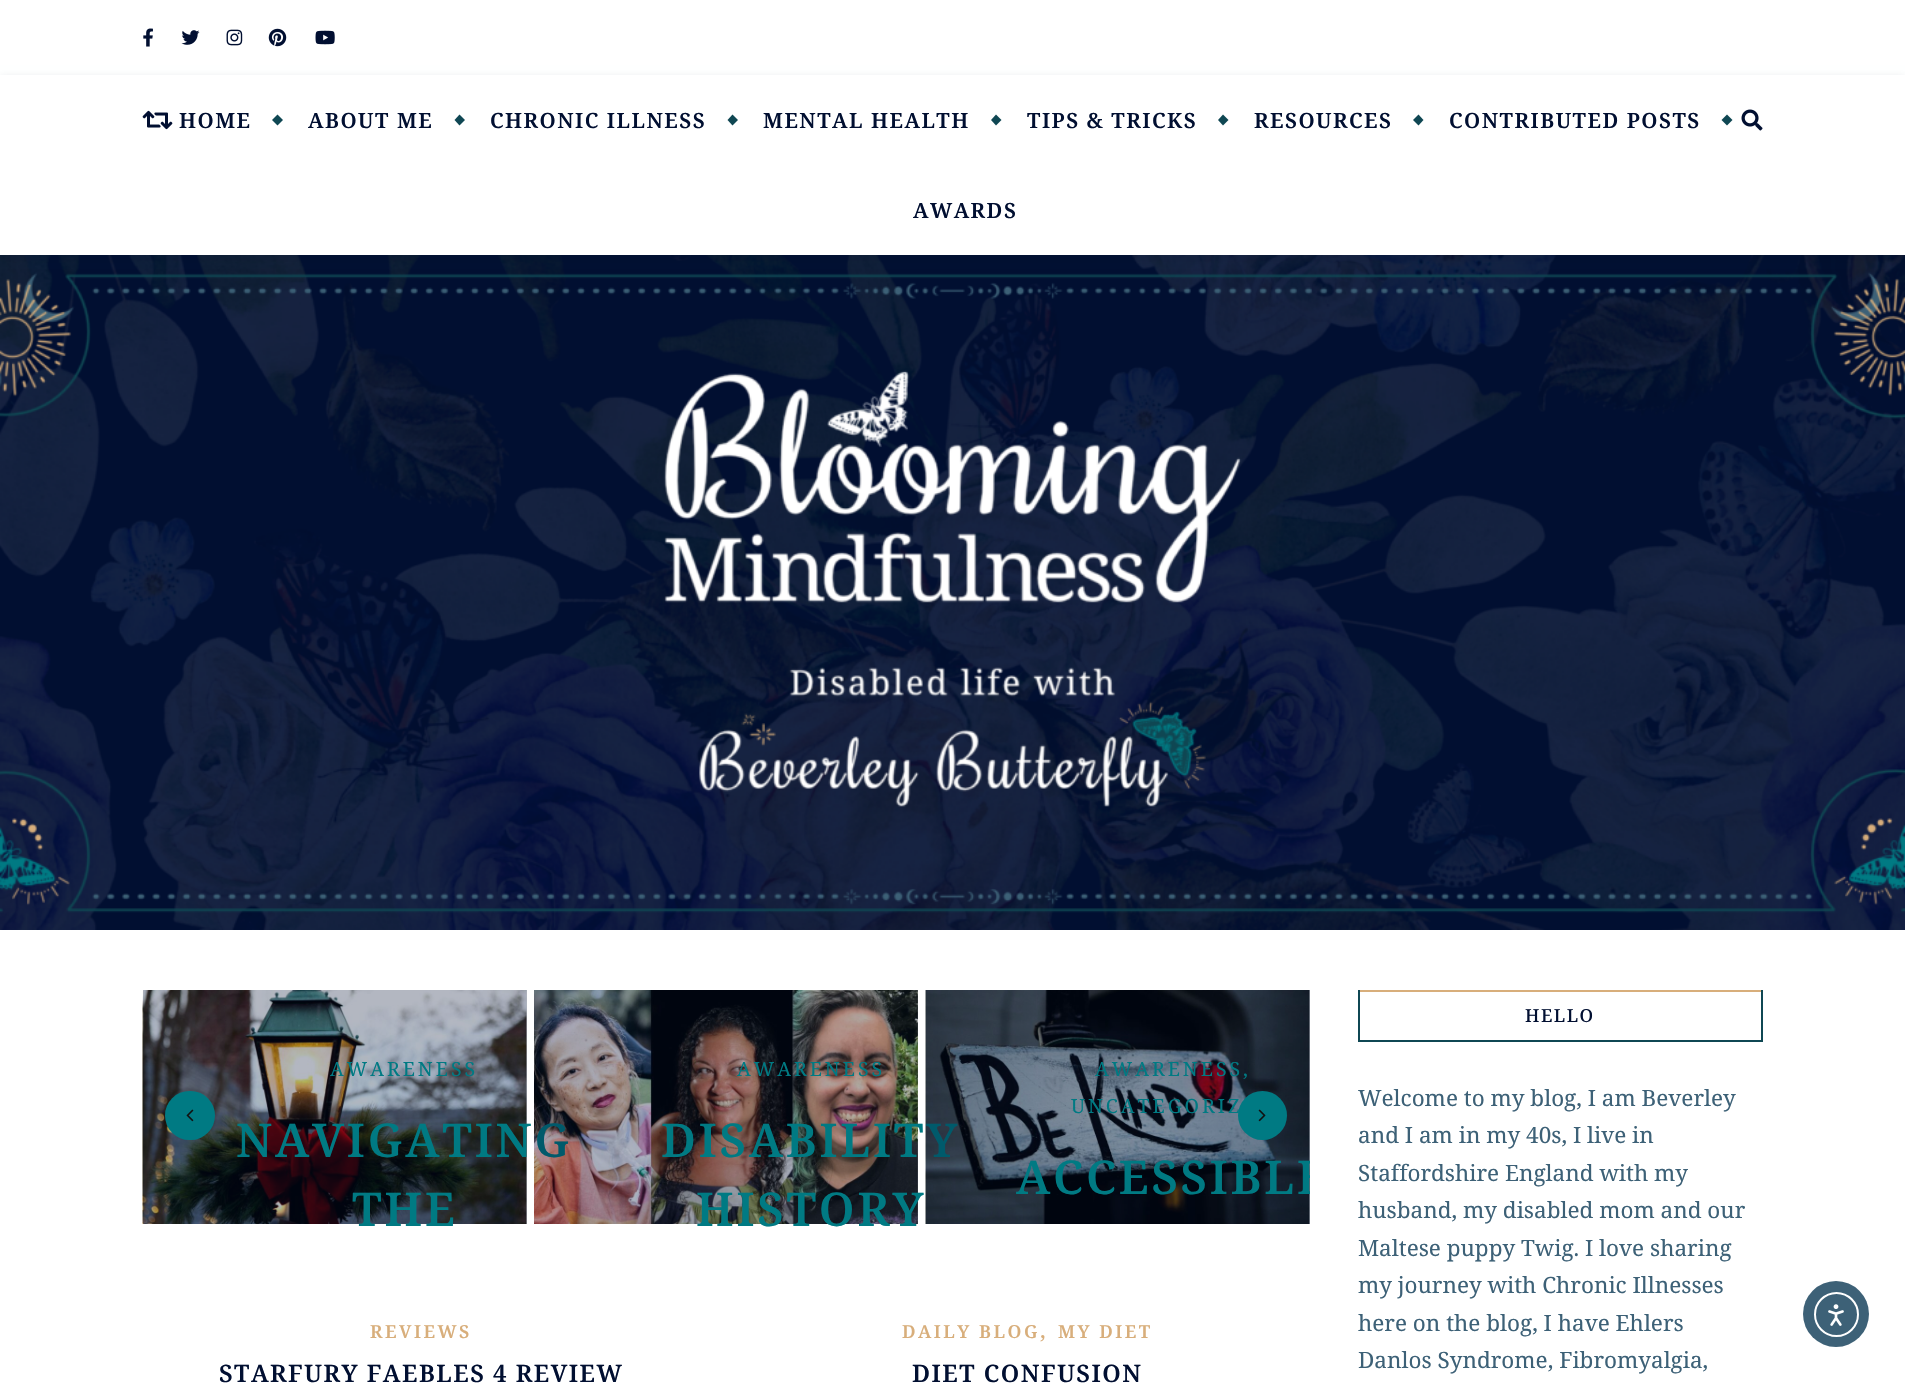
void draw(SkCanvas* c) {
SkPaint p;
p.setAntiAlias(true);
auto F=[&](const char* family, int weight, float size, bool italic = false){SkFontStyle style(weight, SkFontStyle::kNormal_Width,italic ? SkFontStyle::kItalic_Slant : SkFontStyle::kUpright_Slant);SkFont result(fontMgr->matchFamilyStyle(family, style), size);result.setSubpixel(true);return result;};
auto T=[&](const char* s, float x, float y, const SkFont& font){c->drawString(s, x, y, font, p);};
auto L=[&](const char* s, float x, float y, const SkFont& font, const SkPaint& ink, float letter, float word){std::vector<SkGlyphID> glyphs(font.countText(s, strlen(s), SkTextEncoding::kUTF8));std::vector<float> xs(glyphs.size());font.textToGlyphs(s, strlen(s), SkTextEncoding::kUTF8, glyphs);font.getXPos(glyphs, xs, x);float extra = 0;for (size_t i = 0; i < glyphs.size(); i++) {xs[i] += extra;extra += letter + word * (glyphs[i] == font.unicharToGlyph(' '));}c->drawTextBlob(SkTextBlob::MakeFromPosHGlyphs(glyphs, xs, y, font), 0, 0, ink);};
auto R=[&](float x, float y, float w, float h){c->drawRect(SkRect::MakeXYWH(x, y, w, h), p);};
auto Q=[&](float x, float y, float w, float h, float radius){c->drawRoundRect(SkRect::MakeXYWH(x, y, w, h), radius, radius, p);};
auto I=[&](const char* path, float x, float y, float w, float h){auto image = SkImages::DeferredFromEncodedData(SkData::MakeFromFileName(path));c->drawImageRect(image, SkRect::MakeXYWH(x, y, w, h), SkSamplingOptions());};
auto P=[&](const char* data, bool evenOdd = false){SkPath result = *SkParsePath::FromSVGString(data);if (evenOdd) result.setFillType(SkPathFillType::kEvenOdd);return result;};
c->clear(0xffffffff);
p.setColor(0xffb3b7c1);
R(526,990,1,234);
I("1.png",143,28,10,19);
I("2.png",181,30,19,15);
I("3.png",226,29,17,17);
I("4.png",268,28,19,19);
I("5.png",315,30,20,15);
I("8.png",0,255,1905,675);
p.setColor(0x1a010f31);
p.setMaskFilter(SkMaskFilter::MakeBlur(kNormal_SkBlurStyle, 4));
c->drawRect(SkRect::MakeXYWH(0,77,1905,180),p);
p.setMaskFilter(nullptr);
p.setColor(0xffffffff);
R(0,75,1905,180);
I("6.png",142,110,31,20);
auto f1 = F("Noto Serif",600,21);
p.setColor(0xff010f31);
L("HOME",179,128,f1,p,1.5,0);
p.setColor(0xff0f4753);
c->drawPath(P("M272 120l5.5-5.5l5.5 5.5l-5.5 5.5z"),p);
p.setColor(0xff010f31);
L("ABOUT ME",308,128,f1,p,1.5,0);
p.setColor(0xff0f4753);
c->drawPath(P("M454.5 120l5-5.5l5.5 5.5l-5.5 5.5z"),p);
p.setColor(0xff010f31);
L("CHRONIC ILLNESS",490,128,f1,p,1.5,0);
p.setColor(0xff0f4753);
c->drawPath(P("M727.5 120l5-5.5l5.5 5.5l-5.5 5.5z"),p);
p.setColor(0xff010f31);
L("MENTAL HEALTH",763,128,f1,p,1.5,0);
p.setColor(0xff0f4753);
c->drawPath(P("M991 120l5-5.5l5.5 5.5l-5.5 5.5z"),p);
p.setColor(0xff010f31);
L("TIPS & TRICKS",1027,128,f1,p,1.5,0);
p.setColor(0xff0f4753);
c->drawPath(P("M1218 120l5-5.5l5.5 5.5l-5.5 5.5z"),p);
p.setColor(0xff010f31);
L("RESOURCES",1254,128,f1,p,1.5,0);
p.setColor(0xff0f4753);
c->drawPath(P("M1413 120l5.5-5.5l5 5.5l-5 5.5z"),p);
p.setColor(0xff010f31);
L("CONTRIBUTED POSTS",1449,128,f1,p,1.5,0);
p.setColor(0xff0f4753);
c->drawPath(P("M1721.5 120l5.5-5.5l5.5 5.5l-5.5 5.5z"),p);
p.setColor(0xff010f31);
L("AWARDS",913,218,f1,p,1.5,0);
I("7.png",1741,109,22,22);
I("10.png",142,990,385,234);
p.setColor(0xff007a83);
Q(165,1091,50,49,24.5);
I("9.png",186,1109,8,13);
auto f2 = F("Noto Serif",400,19.5);
L("AWARENESS",330,1076,f2,p,3,0);
I("11.png",534,990,384,234);
auto f3 = F("Noto Serif",600,46.5);
L("NAVIGATING",236,1157,f3,p,2.8,0);
L("THE",352,1226,f3,p,2.8,0);
p.setColor(0x4d010f31);
R(534,990,384,234);
p.setColor(0xff007a83);
L("AWARENESS",737,1076,f2,p,3,0);
I("12.png",925,990,385,234);
L("DISABILITY",661,1157,f3,p,2.8,0);
L("HISTORY",696,1226,f3,p,2.8,0);
p.setColor(0x4d010f31);
R(926,990,384,234);
p.setColor(0xff007a83);
L("AWARENESS,",1095,1076,f2,p,3,0);
L("UNCATEGORIZ",1071,1113,f2,p,3,0);
c->save();
c->clipRect(SkRect::MakeXYWH(143,990,1167,245));
L("ACCESSIBLE",1016,1194,f3,p,2.8,0);
c->restore();
c->drawCircle(1262.5,1115.5,24.5,p);
I("13.png",1258,1109,8,13);
auto f4 = F("Noto Serif",600,18);
p.setColor(0xffd8ae7b);
L("REVIEWS",370,1338,f4,p,2.5,0);
auto f5 = F("Noto Serif",600,24);
p.setColor(0xff010f31);
L("STARFURY FAEBLES 4 REVIEW",219,1382,f5,p,1.5,0);
p.setColor(0xffd8ae7b);
L("DAILY BLOG",902,1338,f4,p,2.5,0);
auto f6 = F("Noto Serif",400,22.5);
T(",",1040,1338,f6);
L("MY DIET",1058,1338,f4,p,2.5,0);
p.setColor(0xff010f31);
L("DIET CONFUSION",912,1382,f5,p,1.5,0);
p.setColor(0xffd8ae7b);
R(1358,990,405,2);
p.setColor(0xff0f4753);
R(1761,990,2,51);
R(1358,1040,405,2);
R(1358,990,2,51);
auto f7 = F("Noto Serif",500,18);
p.setColor(0xff010f31);
L("HELLO",1525,1022,f7,p,1.5,0);
p.setColor(0xff3d6177);
T("Welcome to my blog, I am Beverley",1358,1106,f6);
T("and I am in my 40s, I live in",1358,1143,f6);
T("Staffordshire England with my",1358,1181,f6);
T("husband, my disabled mom and our",1358,1218,f6);
T("Maltese puppy Twig. I love sharing",1358,1256,f6);
T("my journey with Chronic Illnesses",1358,1293,f6);
T("here on the blog, I have Ehlers",1358,1331,f6);
T("Danlos Syndrome, Fibromyalgia,",1358,1368,f6);
c->drawCircle(1836,1314,33,p);
p.setStroke(true);
p.setStrokeWidth(2);
p.setColor(0xffffffff);
c->drawCircle(1836.5,1314.5,21.5,p);
I("14.png",1828,1304,16,22);
}
